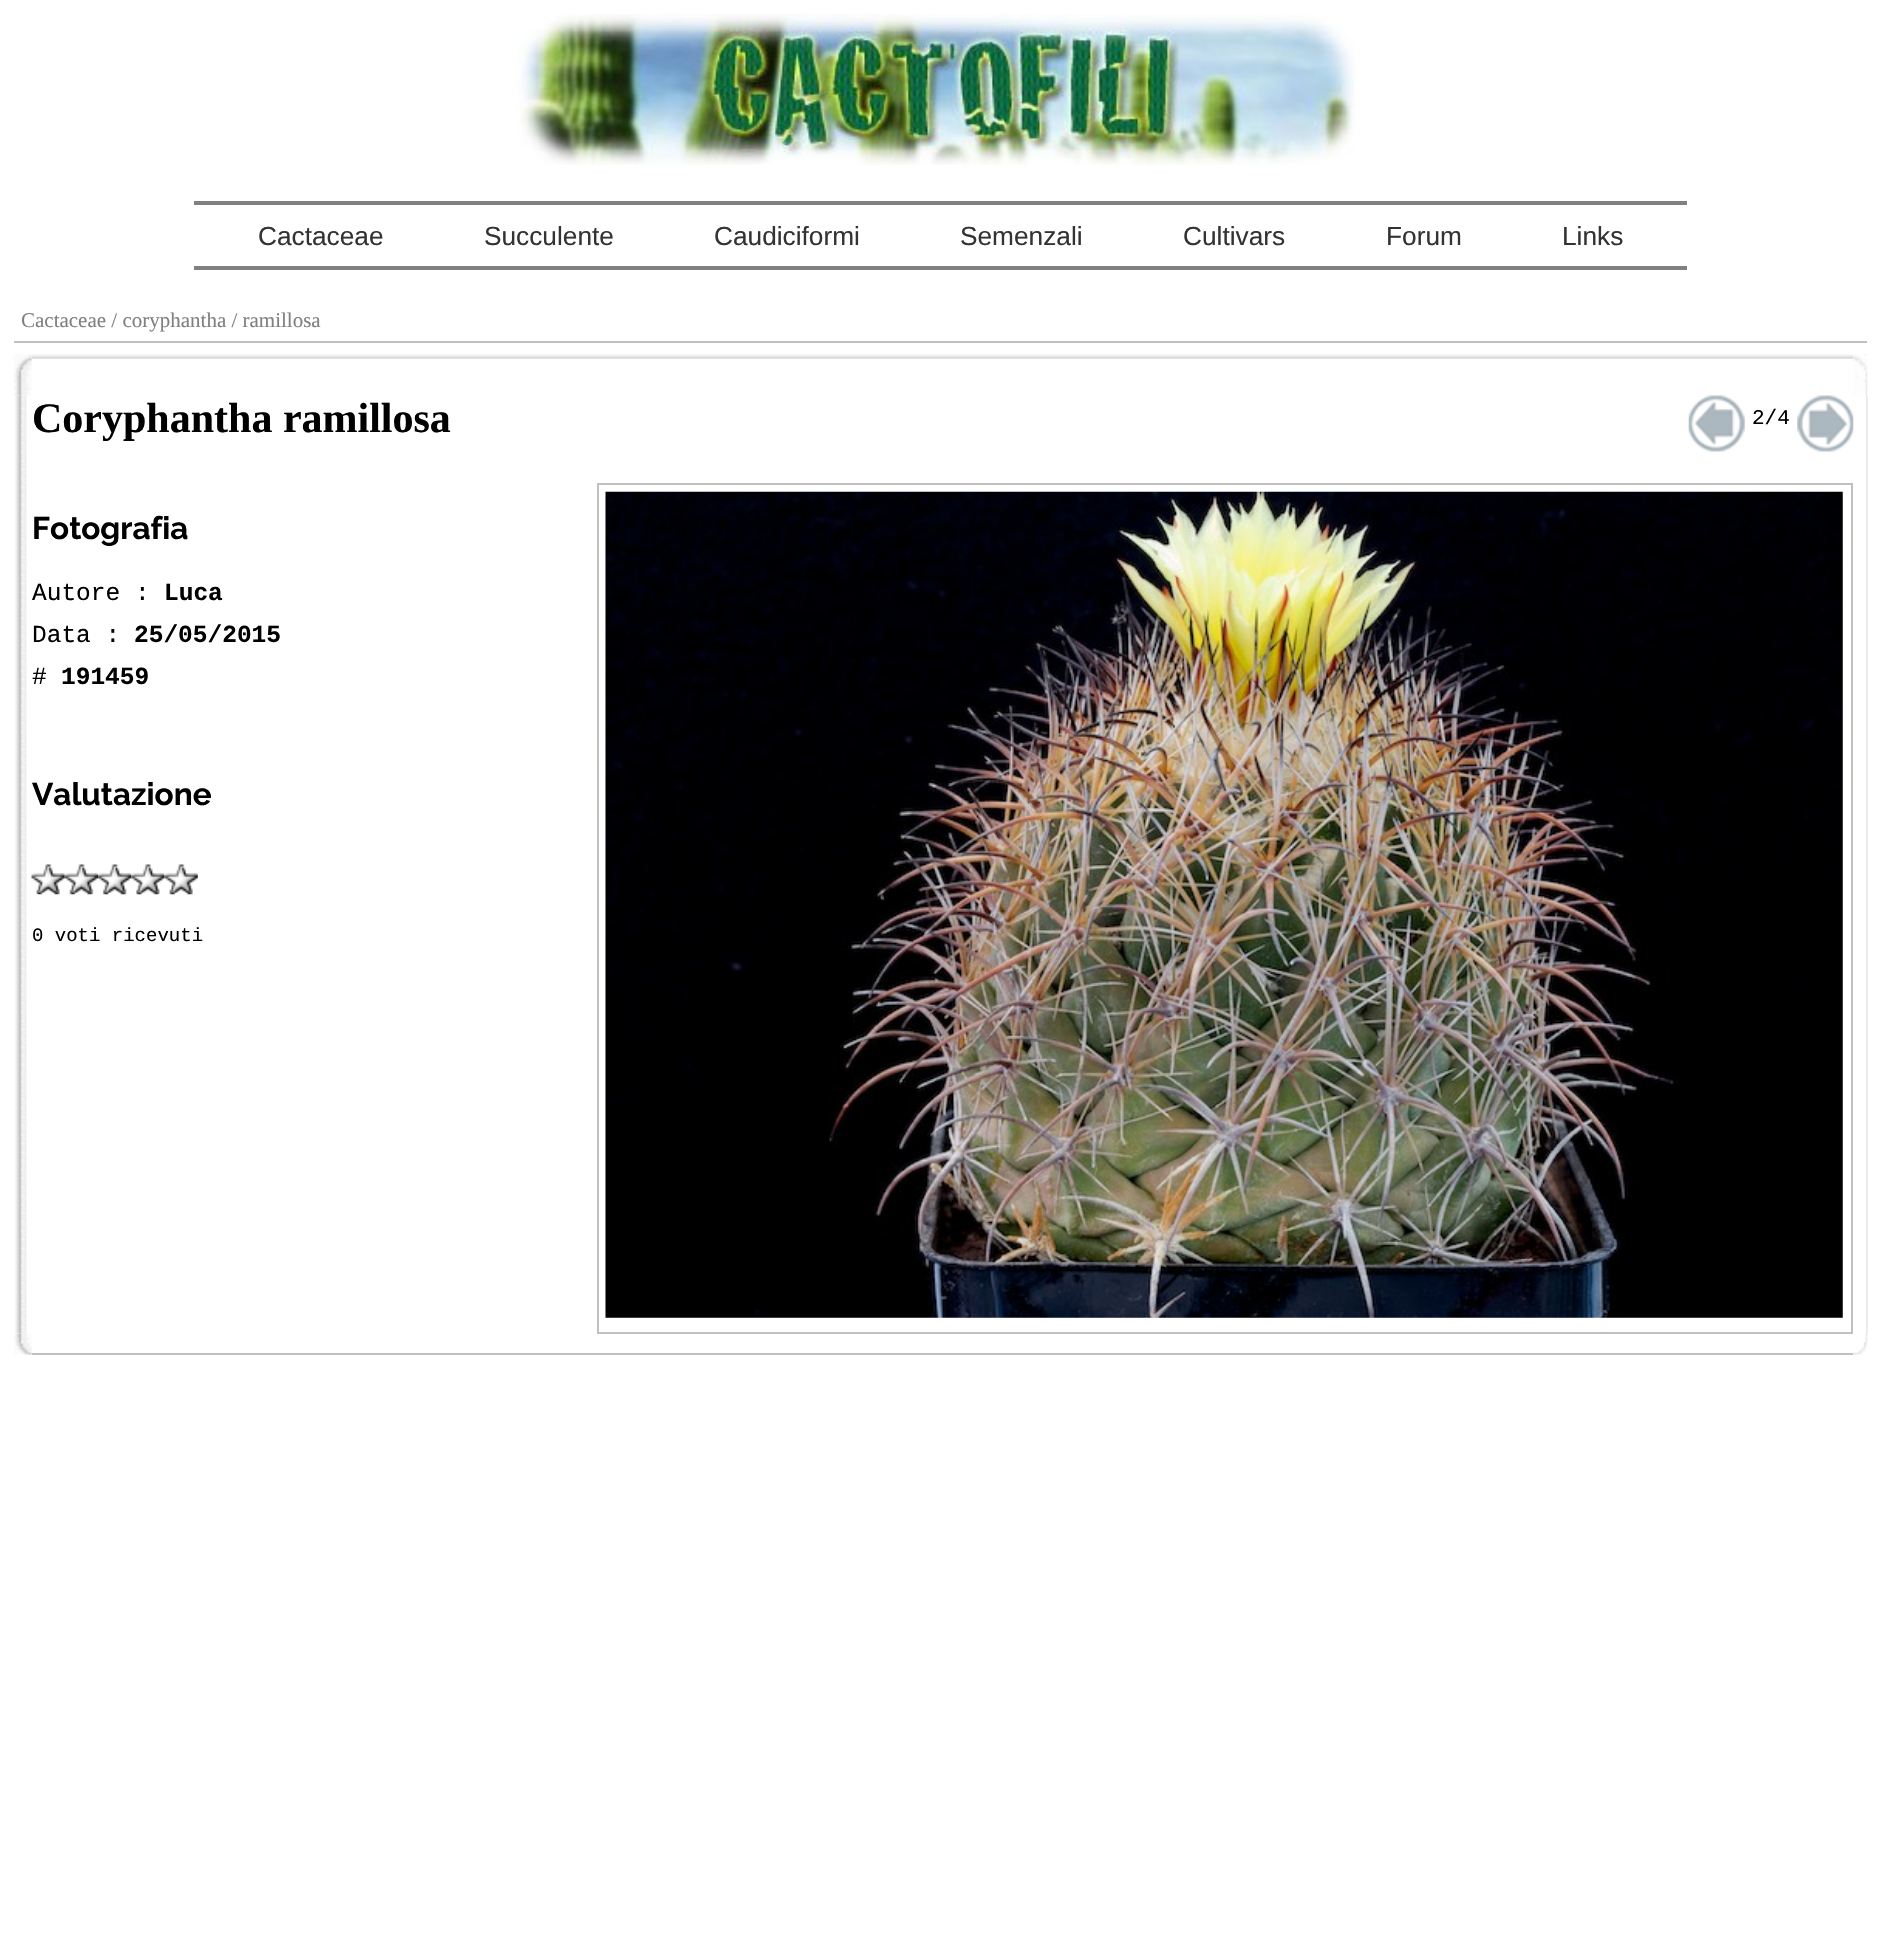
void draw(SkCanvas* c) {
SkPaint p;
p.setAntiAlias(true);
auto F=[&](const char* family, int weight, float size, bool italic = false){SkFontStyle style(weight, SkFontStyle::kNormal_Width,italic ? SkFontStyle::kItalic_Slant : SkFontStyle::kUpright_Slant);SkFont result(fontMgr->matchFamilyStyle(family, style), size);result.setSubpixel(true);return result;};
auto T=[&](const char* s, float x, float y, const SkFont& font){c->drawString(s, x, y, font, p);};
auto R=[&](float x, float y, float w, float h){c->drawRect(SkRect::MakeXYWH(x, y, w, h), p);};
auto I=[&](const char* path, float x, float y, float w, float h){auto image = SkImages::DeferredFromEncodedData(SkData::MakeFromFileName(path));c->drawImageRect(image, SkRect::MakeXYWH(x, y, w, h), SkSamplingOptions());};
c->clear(0xffffffff);
I("1.png",516,14,840,151);
p.setColor(0xff808080);
R(194,201,1493,4);
R(194,266,1493,4);
auto f1 = F("Liberation Sans",400,26.25);
p.setColor(0xff333333);
T("Cactaceae",258,245,f1);
T("Succulente",484,245,f1);
T("Caudiciformi",714,245,f1);
T("Semenzali",960,245,f1);
T("Cultivars",1183,245,f1);
T("Forum",1386,245,f1);
T("Links",1562,245,f1);
p.setColor(0xffc0c0c0);
R(14,341,1853,2);
auto f2 = F("Liberation Serif",400,21);
p.setColor(0xff808080);
T("Cactaceae / coryphantha / ramillosa",21,327,f2);
I("2.png",14,354,18,42);
I("3.png",31,354,1823,5);
I("4.png",1853,353,15,43);
I("5.png",15,395,12,939);
auto f3 = F("Liberation Serif",700,42);
p.setColor(0xff000000);
T("Coryphantha ramillosa",32,432,f3);
I("6.png",1688,395,57,57);
auto f4 = F("Liberation Mono",400,21);
T("2/4",1752,424,f4);
I("7.png",1797,395,57,57);
auto f5 = F("Raleway",700,31.5);
T("Fotografia",32,539,f5);
auto f6 = F("Liberation Mono",400,24.5);
T("Autore :",32,600,f6);
auto f7 = F("Liberation Mono",700,24.5);
T("Luca",164,600,f7);
T("Data :",32,642,f6);
T("25/05/2015",134,642,f7);
T("#",32,684,f6);
T("191459",61,684,f7);
T("Valutazione",32,805,f5);
I("8.png",31,864,34,31);
I("9.png",64,864,34,31);
I("10.png",98,864,34,31);
I("11.png",131,864,34,31);
I("12.png",164,864,34,31);
auto f8 = F("Liberation Mono",400,19);
T("0 voti ricevuti",32,941,f8);
p.setStroke(true);
p.setStrokeWidth(2);
p.setColor(0xffc0c0c0);
c->drawRect(SkRect::MakeXYWH(598,484,1254,849),p);
I("13.png",605,491,1238,827);
I("15.png",1853,1333,15,22);
p.setStroke(false);
p.setColor(0xffececec);
R(1866,396,2,938);
I("14.png",14,1333,18,22);
p.setColor(0xffc0c0c0);
R(32,1353,1821,2);
}
